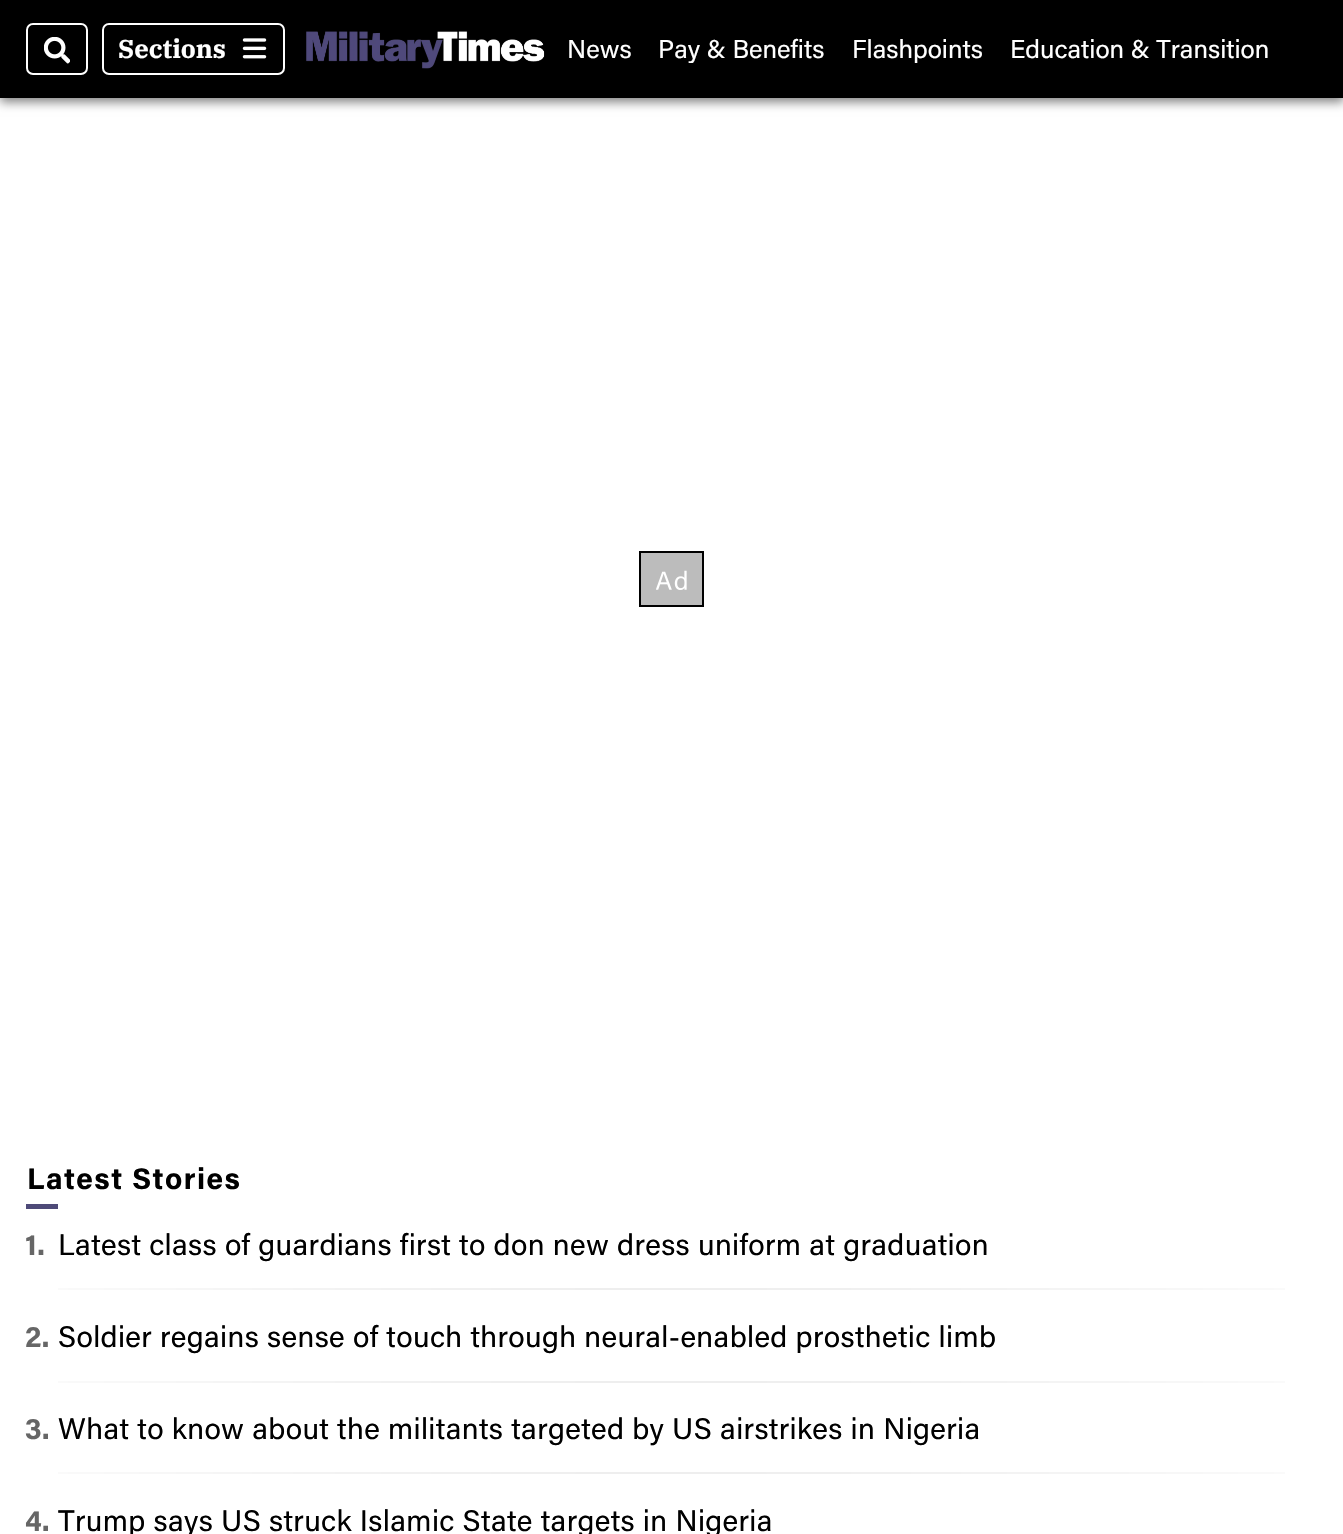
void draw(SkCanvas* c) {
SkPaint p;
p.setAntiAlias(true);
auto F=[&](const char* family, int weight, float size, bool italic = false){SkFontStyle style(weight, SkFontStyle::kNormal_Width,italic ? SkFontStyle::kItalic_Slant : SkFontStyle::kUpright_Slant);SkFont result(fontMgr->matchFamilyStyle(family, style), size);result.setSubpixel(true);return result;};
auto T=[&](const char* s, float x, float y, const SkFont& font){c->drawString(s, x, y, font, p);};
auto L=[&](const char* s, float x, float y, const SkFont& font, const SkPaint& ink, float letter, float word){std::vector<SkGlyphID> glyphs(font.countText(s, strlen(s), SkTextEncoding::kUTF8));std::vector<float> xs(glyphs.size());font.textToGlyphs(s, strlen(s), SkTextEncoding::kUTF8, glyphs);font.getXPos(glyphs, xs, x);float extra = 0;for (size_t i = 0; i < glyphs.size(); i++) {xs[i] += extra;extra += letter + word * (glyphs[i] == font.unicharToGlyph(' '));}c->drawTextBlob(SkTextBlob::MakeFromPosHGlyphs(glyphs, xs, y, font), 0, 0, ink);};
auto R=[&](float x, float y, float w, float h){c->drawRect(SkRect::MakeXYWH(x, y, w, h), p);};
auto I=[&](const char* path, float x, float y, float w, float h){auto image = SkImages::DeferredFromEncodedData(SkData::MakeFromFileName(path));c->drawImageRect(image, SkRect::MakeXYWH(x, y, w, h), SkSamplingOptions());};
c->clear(0xffffffff);
p.setColor(0x80000000);
p.setMaskFilter(SkMaskFilter::MakeBlur(kNormal_SkBlurStyle, 5));
c->drawRect(SkRect::MakeXYWH(0,4,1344,98),p);
p.setMaskFilter(nullptr);
p.setColor(0xff000000);
R(0,0,1343,98);
p.setStroke(true);
p.setStrokeWidth(2);
p.setColor(0xffffffff);
c->drawRoundRect(SkRect::MakeXYWH(27,24,60,50),6,6,p);
I("1.png",44,37,26,27);
c->drawRoundRect(SkRect::MakeXYWH(103,24,181,50),6,6,p);
auto f1 = F("IBM Plex Serif",700,25.75);
p.setStroke(false);
T("Sections",118,58,f1);
I("2.png",242,38,25,21);
I("3.png",306,31,239,38);
auto f2 = F("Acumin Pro",400,25.75);
T("News",567,58,f2);
c->save();
c->clipRect(SkRect::MakeXYWH(567,35,728,28));
T("Pay & Benefits",658,58,f2);
c->restore();
T("Flashpoints",852,58,f2);
T("Education & Transition",1010,58,f2);
p.setColor(0xffbcbcbc);
R(641,553,61,52);
I("4.png",656,570,31,20);
p.setStroke(true);
p.setColor(0xff000000);
c->drawRect(SkRect::MakeXYWH(640,552,63,54),p);
auto f3 = F("Acumin Pro",700,29.75);
p.setStroke(false);
L("Latest Stories",27,1189,f3,p,1.5,0);
p.setColor(0xff4e4a78);
R(26,1204,32,5);
p.setColor(0xff666666);
L("1.",25,1255,f3,p,.37,0);
auto f4 = F("Acumin Pro",400,29.75);
p.setColor(0xff000000);
L("Latest class of guardians first to don new dress uniform at graduation",58,1255,f4,p,.37,0);
{
const SkColor colors[] = {0xffe2e2e2,0xffffffff};
const float stops[] = {0,1};
SkMatrix m = SkMatrix::Translate(671,1289).preScale(867,1.2);
p.setShader(SkGradientShader::MakeRadial({0, 0}, 1, colors, stops, 2, SkTileMode::kClamp, 0, &m));
p.setAlpha(255);
}
R(58,1288,1227,2);
p.setShader(nullptr);
p.setColor(0xff666666);
L("2.",25,1347,f3,p,.37,0);
p.setColor(0xff000000);
L("Soldier regains sense of touch through neural-enabled prosthetic limb",58,1347,f4,p,.37,0);
{
const SkColor colors[] = {0xffe2e2e2,0xffffffff};
const float stops[] = {0,1};
SkMatrix m = SkMatrix::Translate(671,1382).preScale(867,1.2);
p.setShader(SkGradientShader::MakeRadial({0, 0}, 1, colors, stops, 2, SkTileMode::kClamp, 0, &m));
p.setAlpha(255);
}
R(58,1381,1227,2);
p.setShader(nullptr);
p.setColor(0xff666666);
L("3.",25,1439,f3,p,.37,0);
p.setColor(0xff000000);
L("What to know about the militants targeted by US airstrikes in Nigeria",58,1439,f4,p,.37,0);
{
const SkColor colors[] = {0xffe2e2e2,0xffffffff};
const float stops[] = {0,1};
SkMatrix m = SkMatrix::Translate(671,1473).preScale(867,1.2);
p.setShader(SkGradientShader::MakeRadial({0, 0}, 1, colors, stops, 2, SkTileMode::kClamp, 0, &m));
p.setAlpha(255);
}
R(58,1472,1227,2);
p.setShader(nullptr);
p.setColor(0xff666666);
L("4.",25,1531,f3,p,.37,0);
p.setColor(0xff000000);
L("Trump says US struck Islamic State targets in Nigeria",58,1531,f4,p,.37,0);
}
